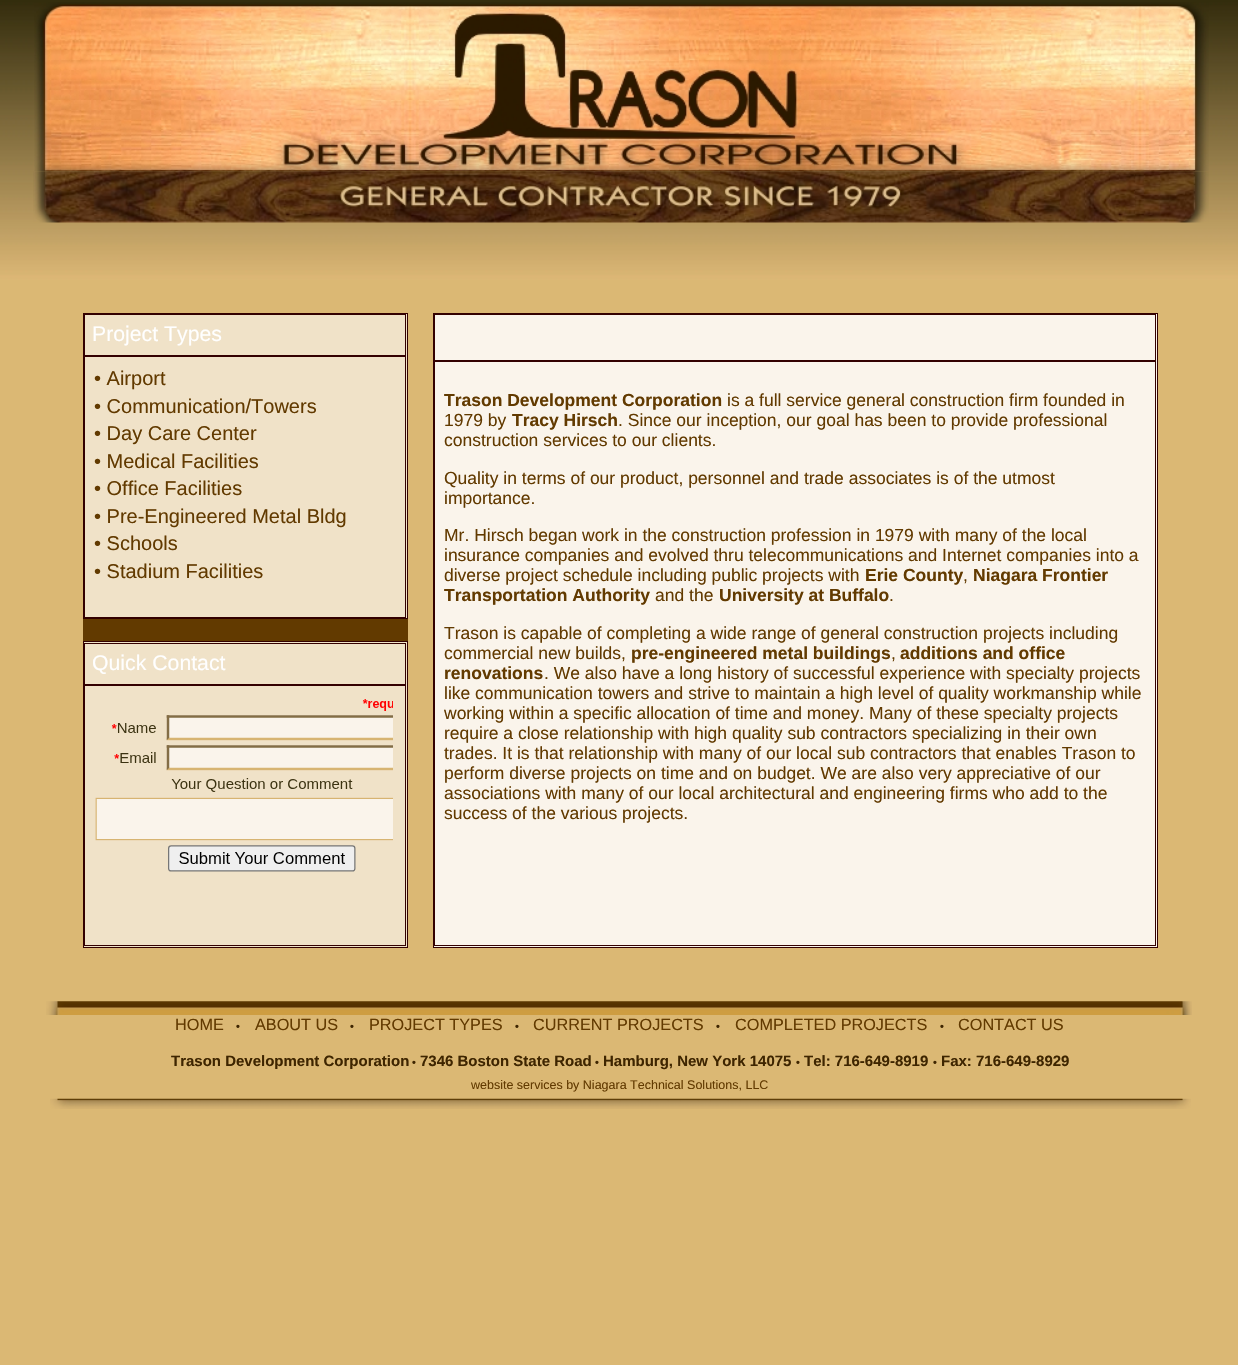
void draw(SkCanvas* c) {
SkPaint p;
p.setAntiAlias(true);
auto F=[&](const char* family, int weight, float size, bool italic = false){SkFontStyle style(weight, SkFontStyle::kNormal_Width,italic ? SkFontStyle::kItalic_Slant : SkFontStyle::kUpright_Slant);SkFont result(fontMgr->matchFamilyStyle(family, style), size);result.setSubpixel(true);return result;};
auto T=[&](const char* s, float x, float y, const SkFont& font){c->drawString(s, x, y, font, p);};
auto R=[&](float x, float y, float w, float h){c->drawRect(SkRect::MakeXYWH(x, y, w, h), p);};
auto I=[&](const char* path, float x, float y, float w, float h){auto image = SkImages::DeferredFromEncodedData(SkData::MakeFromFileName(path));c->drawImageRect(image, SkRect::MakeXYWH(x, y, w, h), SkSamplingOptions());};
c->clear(0xffffffff);
I("1.png",0,0,1238,1365);
I("2.png",34,2,1175,170);
I("3.png",33,171,1176,52);
p.setColor(0xff623a00);
R(83,619,325,22);
p.setColor(0xfff0e2c8);
R(85,314,322,304);
p.setStroke(true);
p.setStrokeWidth(1);
p.setColor(0xff330000);
c->drawRect(SkRect::MakeXYWH(83.5,313.5,324,305),p);
c->drawRect(SkRect::MakeXYWH(84.5,314.5,321,41),p);
auto f1 = F("Liberation Sans",400,21.25);
p.setStroke(false);
p.setColor(0xffffffff);
T("Project Types",92,341,f1);
p.setStroke(true);
p.setColor(0xff330000);
c->drawRect(SkRect::MakeXYWH(84.5,356.5,321,261),p);
auto f2 = F("Liberation Sans",400,20);
p.setStroke(false);
p.setColor(0xff623a00);
T("• Airport",94,385,f2);
T("• Communication/Towers",94,413,f2);
T("• Day Care Center",94,440,f2);
T("• Medical Facilities",94,468,f2);
T("• Office Facilities",94,495,f2);
T("• Pre-Engineered Metal Bldg",94,523,f2);
T("• Schools",94,550,f2);
T("• Stadium Facilities",94,578,f2);
p.setColor(0xfff0e2c8);
c->drawRect(SkRect::MakeXYWH(83.5,641.5,324,306),p);
p.setStroke(true);
p.setColor(0xff330000);
c->drawRect(SkRect::MakeXYWH(83.5,641.5,324,306),p);
c->drawRect(SkRect::MakeXYWH(84.5,643.5,321,41),p);
p.setStroke(false);
p.setColor(0xffffffff);
T("Quick Contact",92,670,f1);
p.setStroke(true);
p.setColor(0xff330000);
c->drawRect(SkRect::MakeXYWH(84.5,685.5,321,260),p);
I("4.png",95,699,298,173);
p.setStroke(false);
p.setColor(0xfffaf4eb);
c->drawRect(SkRect::MakeXYWH(433.5,313.5,724,634),p);
p.setStroke(true);
p.setColor(0xff330000);
c->drawRect(SkRect::MakeXYWH(433.5,313.5,724,634),p);
c->drawRect(SkRect::MakeXYWH(434.5,314.5,721,46),p);
c->drawRect(SkRect::MakeXYWH(434.5,361.5,721,584),p);
auto f3 = F("Liberation Sans",700,17.5);
p.setStroke(false);
p.setColor(0xff623a00);
T("Trason Development Corporation",444,406,f3);
auto f4 = F("Liberation Sans",400,17.5);
T("is a full service general construction firm founded in",727,406,f4);
T("1979 by",444,426,f4);
T("Tracy Hirsch",512,426,f3);
T(". Since our inception, our goal has been to provide professional",618,426,f4);
T("construction services to our clients.",444,446,f4);
T("Quality in terms of our product, personnel and trade associates is of the utmost",444,484,f4);
T("importance.",444,504,f4);
T("Mr. Hirsch began work in the construction profession in 1979 with many of the local",444,541,f4);
T("insurance companies and evolved thru telecommunications and Internet companies into a",444,561,f4);
T("diverse project schedule including public projects with",444,581,f4);
T("Erie County",865,581,f3);
T(",",963,581,f4);
T("Niagara Frontier",973,581,f3);
T("Transportation Authority",444,601,f3);
T("and the",655,601,f4);
T("University at Buffalo",719,601,f3);
T(".",889,601,f4);
T("Trason is capable of completing a wide range of general construction projects including",444,639,f4);
T("commercial new builds,",444,659,f4);
T("pre-engineered metal buildings",631,659,f3);
T(",",891,659,f4);
T("additions and office",900,659,f3);
T("renovations",444,679,f3);
T(". We also have a long history of successful experience with specialty projects",544,679,f4);
T("like communication towers and strive to maintain a high level of quality workmanship while",444,699,f4);
T("working within a specific allocation of time and money. Many of these specialty projects",444,719,f4);
T("require a close relationship with high quality sub contractors specializing in their own",444,739,f4);
T("trades. It is that relationship with many of our local sub contractors that enables Trason to",444,759,f4);
T("perform diverse projects on time and on budget. We are also very appreciative of our",444,779,f4);
T("associations with many of our local architectural and engineering firms who add to the",444,799,f4);
T("success of the various projects.",444,819,f4);
I("5.png",46,1001,1146,14);
auto f5 = F("Liberation Sans",400,16.25);
T("HOME",175,1030,f5);
auto f6 = F("Liberation Sans",700,11);
p.setColor(0xff3e2500);
T("•",236,1030,f6);
p.setColor(0xff623a00);
T("ABOUT US",255,1030,f5);
p.setColor(0xff3e2500);
T("•",350,1030,f6);
p.setColor(0xff623a00);
T("PROJECT TYPES",369,1030,f5);
p.setColor(0xff3e2500);
T("•",515,1030,f6);
p.setColor(0xff623a00);
T("CURRENT PROJECTS",533,1030,f5);
p.setColor(0xff3e2500);
T("•",716,1030,f6);
p.setColor(0xff623a00);
T("COMPLETED PROJECTS",735,1030,f5);
p.setColor(0xff3e2500);
T("•",940,1030,f6);
p.setColor(0xff623a00);
T("CONTACT US",958,1030,f5);
auto f7 = F("Liberation Sans",700,15);
p.setColor(0xff3e2500);
T("Trason Development Corporation",171,1066,f7);
T("•",412,1066,f6);
T("7346 Boston State Road",420,1066,f7);
T("•",595,1066,f6);
T("Hamburg, New York 14075",603,1066,f7);
T("•",796,1066,f6);
T("Tel: 716-649-8919",804,1066,f7);
T("•",933,1066,f6);
T("Fax: 716-649-8929",941,1066,f7);
auto f8 = F("Liberation Sans",400,12.5);
p.setColor(0xff623a00);
T("website services by Niagara Technical Solutions, LLC",471,1089,f8);
I("6.png",50,1098,1141,11);
}
